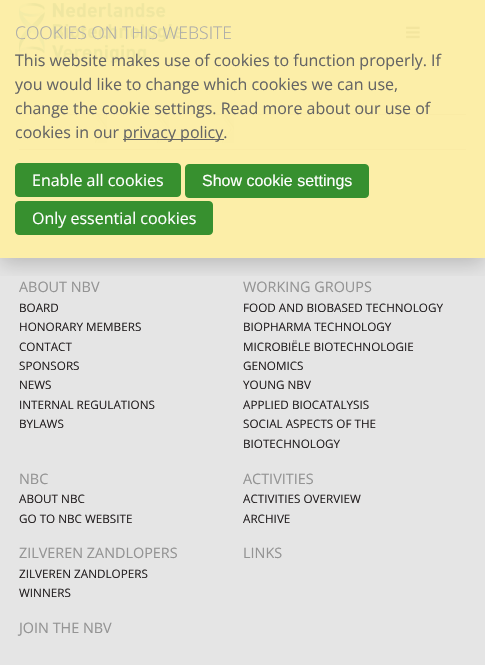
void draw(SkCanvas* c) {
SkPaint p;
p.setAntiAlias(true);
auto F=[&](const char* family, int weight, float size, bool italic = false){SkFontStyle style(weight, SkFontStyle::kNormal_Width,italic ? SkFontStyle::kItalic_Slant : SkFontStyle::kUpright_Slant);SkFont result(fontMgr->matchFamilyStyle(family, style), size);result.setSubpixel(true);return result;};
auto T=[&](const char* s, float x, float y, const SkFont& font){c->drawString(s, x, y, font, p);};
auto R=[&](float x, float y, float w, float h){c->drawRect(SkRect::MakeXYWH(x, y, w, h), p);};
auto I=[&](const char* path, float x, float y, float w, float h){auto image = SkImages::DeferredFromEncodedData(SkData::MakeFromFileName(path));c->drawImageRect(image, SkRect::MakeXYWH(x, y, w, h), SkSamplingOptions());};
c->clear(0xfffceea8);
I("1.png",19,3,164,60);
I("2.png",406,26,14,13);
p.setColor(0xfffaeba5);
R(19,114,447,1);
R(19,149,447,1);
I("3.png",95,115,12,28);
I("3.png",157,115,12,28);
I("3.png",222,115,12,28);
p.setColor(0xffe5e5e5);
R(0,258,485,407);
c->save();
c->clipRect(SkRect::MakeXYWH(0,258,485,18));
p.setColor(0x33000000);
p.setMaskFilter(SkMaskFilter::MakeBlur(kNormal_SkBlurStyle, 10));
c->drawRect(SkRect::MakeXYWH(0,5,485,258),p);
p.setMaskFilter(nullptr);
c->restore();
auto f1 = F("Open Sans",300,17.6);
p.setColor(0xffaaaaaa);
T("COOKIES ON THIS WEBSITE",15,39,f1);
auto f2 = F("Open Sans",400,16);
p.setColor(0xff656565);
T("This website makes use of cookies to function properly. If",15,66,f2);
T("you would like to change which cookies we can use,",15,90,f2);
T("change the cookie settings. Read more about our use of",15,114,f2);
T("cookies in our",15,138,f2);
R(123,139,101,1);
T("privacy policy.",123,138,f2);
p.setColor(0xff37902f);
c->drawRoundRect(SkRect::MakeXYWH(15.5,163.5,165,33),3.5,3.5,p);
p.setStroke(true);
p.setStrokeWidth(1);
c->drawRoundRect(SkRect::MakeXYWH(15.5,163.5,165,33),3.5,3.5,p);
p.setStroke(false);
p.setColor(0xffffffff);
T("Enable all cookies",32,186,f2);
p.setColor(0xff37902f);
c->drawRoundRect(SkRect::MakeXYWH(185.5,164.5,183,33),3.5,3.5,p);
p.setStroke(true);
c->drawRoundRect(SkRect::MakeXYWH(185.5,164.5,183,33),3.5,3.5,p);
auto f3 = F("Liberation Sans",400,16);
p.setStroke(false);
p.setColor(0xffffffff);
T("Show cookie settings",202,186,f3);
p.setColor(0xff37902f);
c->drawRoundRect(SkRect::MakeXYWH(15.5,201.5,197,33),3.5,3.5,p);
p.setStroke(true);
c->drawRoundRect(SkRect::MakeXYWH(15.5,201.5,197,33),3.5,3.5,p);
p.setStroke(false);
p.setColor(0xffffffff);
T("Only essential cookies",32,224,f2);
auto f4 = F("Open Sans",400,14.4);
p.setColor(0xff949494);
T("ABOUT NBV",19,292,f4);
auto f5 = F("Open Sans",400,11.7);
p.setColor(0xff231f20);
T("BOARD",19,312,f5);
T("HONORARY MEMBERS",19,331,f5);
T("CONTACT",19,351,f5);
T("SPONSORS",19,370,f5);
T("NEWS",19,389,f5);
T("INTERNAL REGULATIONS",19,409,f5);
T("BYLAWS",19,428,f5);
p.setColor(0xff949494);
T("WORKING GROUPS",243,292,f4);
p.setColor(0xff231f20);
T("FOOD AND BIOBASED TECHNOLOGY",243,312,f5);
T("BIOPHARMA TECHNOLOGY",243,331,f5);
T("MICROBIËLE BIOTECHNOLOGIE",243,351,f5);
T("GENOMICS",243,370,f5);
T("YOUNG NBV",243,389,f5);
T("APPLIED BIOCATALYSIS",243,409,f5);
T("SOCIAL ASPECTS OF THE",243,428,f5);
T("BIOTECHNOLOGY",243,448,f5);
p.setColor(0xff949494);
T("NBC",19,484,f4);
p.setColor(0xff231f20);
T("ABOUT NBC",19,503,f5);
T("GO TO NBC WEBSITE",19,523,f5);
p.setColor(0xff949494);
T("ACTIVITIES",243,484,f4);
p.setColor(0xff231f20);
T("ACTIVITIES OVERVIEW",243,503,f5);
T("ARCHIVE",243,523,f5);
p.setColor(0xff949494);
T("ZILVEREN ZANDLOPERS",19,558,f4);
p.setColor(0xff231f20);
T("ZILVEREN ZANDLOPERS",19,578,f5);
T("WINNERS",19,597,f5);
p.setColor(0xff949494);
T("LINKS",243,558,f4);
T("JOIN THE NBV",19,633,f4);
}
